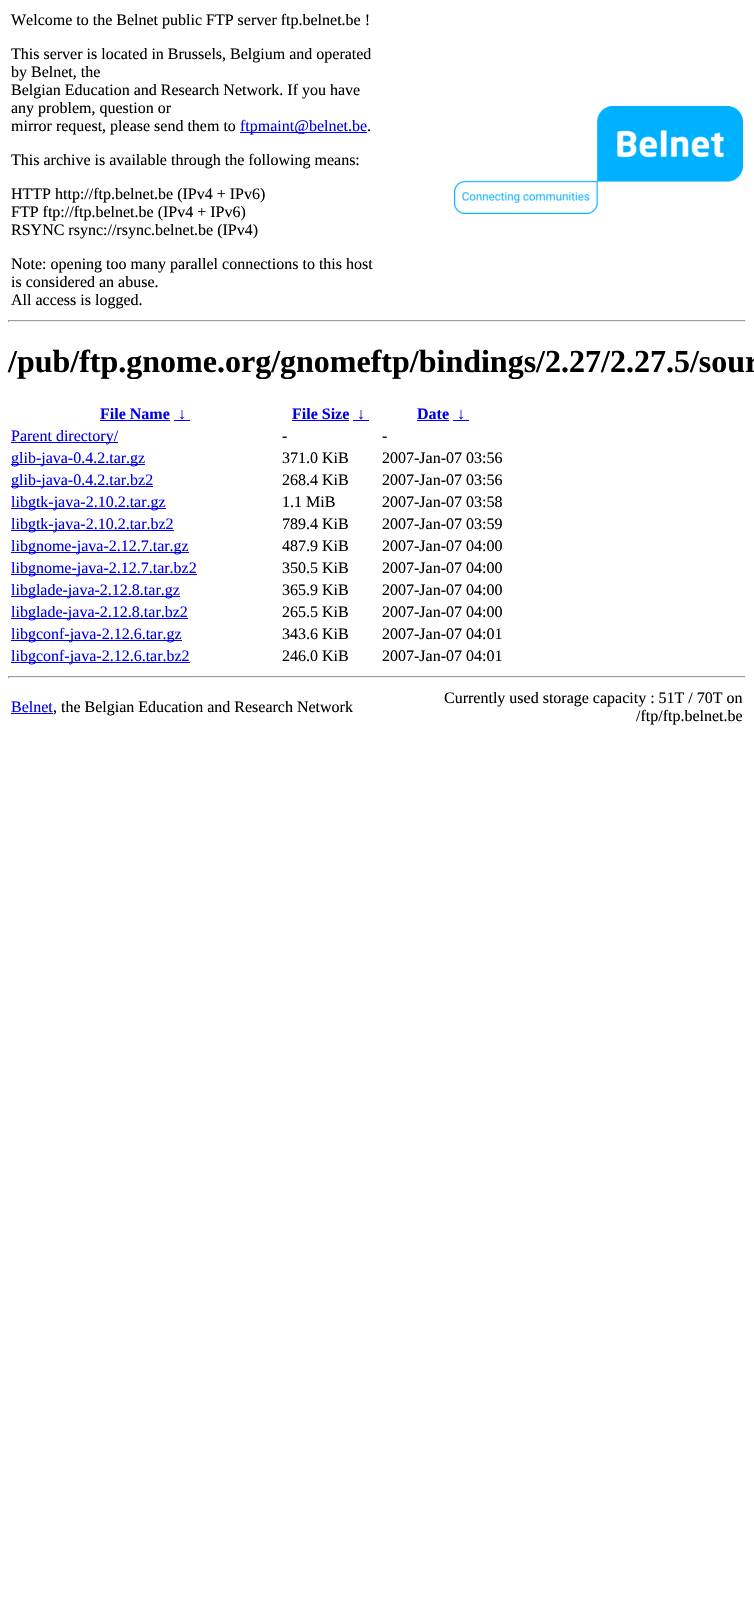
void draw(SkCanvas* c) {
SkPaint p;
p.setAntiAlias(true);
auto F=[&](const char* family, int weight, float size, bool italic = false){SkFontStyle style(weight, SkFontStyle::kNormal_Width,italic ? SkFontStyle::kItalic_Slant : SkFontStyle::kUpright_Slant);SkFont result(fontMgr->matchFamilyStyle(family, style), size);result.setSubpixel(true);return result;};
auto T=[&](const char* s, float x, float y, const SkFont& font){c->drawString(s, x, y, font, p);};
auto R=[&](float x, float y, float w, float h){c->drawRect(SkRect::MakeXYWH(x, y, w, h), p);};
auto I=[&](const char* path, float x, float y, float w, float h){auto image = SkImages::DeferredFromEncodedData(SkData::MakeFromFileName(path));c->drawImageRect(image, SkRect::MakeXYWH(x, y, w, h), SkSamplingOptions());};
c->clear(0xffffffff);
auto f1 = F("Liberation Serif",400,16);
p.setColor(0xff000000);
T("Welcome to the Belnet public FTP server ftp.belnet.be !",11,25,f1);
T("This server is located in Brussels, Belgium and operated",11,59,f1);
T("by Belnet, the",11,77,f1);
T("Belgian Education and Research Network. If you have",11,95,f1);
T("any problem, question or",11,113,f1);
T("mirror request, please send them to",11,131,f1);
p.setColor(0xff0000ee);
R(240,132,127,1);
T("ftpmaint@belnet.be",240,131,f1);
p.setColor(0xff000000);
T(".",367,131,f1);
T("This archive is available through the following means:",11,165,f1);
T("HTTP http://ftp.belnet.be (IPv4 + IPv6)",11,199,f1);
T("FTP ftp://ftp.belnet.be (IPv4 + IPv6)",11,217,f1);
T("RSYNC rsync://rsync.belnet.be (IPv4)",11,235,f1);
T("Note: opening too many parallel connections to this host",11,269,f1);
T("is considered an abuse.",11,287,f1);
T("All access is logged.",11,305,f1);
I("1.png",454,106,289,108);
p.setColor(0xff9f9f9f);
R(8,320,738,1);
p.setColor(0xffeeeeee);
R(745,320,1,2);
R(8,321,738,1);
p.setColor(0xff9f9f9f);
R(8,320,1,2);
auto f2 = F("Liberation Serif",700,32);
p.setColor(0xff000000);
T("/pub/ftp.gnome.org/gnomeftp/bindings/2.27/2.27.5/sour",8,372,f2);
auto f3 = F("Liberation Serif",700,16);
p.setColor(0xff0000ee);
T("File Name",100,419,f3);
R(100,420,70,1);
T("↓",178,419,f3);
R(174,420,16,1);
T("File Size",292,419,f3);
R(292,420,57,1);
T("↓",357,419,f3);
R(353,420,16,1);
T("Date",417,419,f3);
R(417,420,32,1);
T("↓",457,419,f3);
R(453,420,16,1);
R(11,442,107,1);
T("Parent directory/",11,441,f1);
p.setColor(0xff000000);
T("-",282,441,f1);
T("-",382,441,f1);
p.setColor(0xff0000ee);
R(11,464,134,1);
T("glib-java-0.4.2.tar.gz",11,463,f1);
p.setColor(0xff000000);
T("371.0 KiB",282,463,f1);
T("2007-Jan-07 03:56",382,463,f1);
p.setColor(0xff0000ee);
R(11,486,142,1);
T("glib-java-0.4.2.tar.bz2",11,485,f1);
p.setColor(0xff000000);
T("268.4 KiB",282,485,f1);
T("2007-Jan-07 03:56",382,485,f1);
p.setColor(0xff0000ee);
R(11,508,155,1);
T("libgtk-java-2.10.2.tar.gz",11,507,f1);
p.setColor(0xff000000);
T("1.1 MiB",282,507,f1);
T("2007-Jan-07 03:58",382,507,f1);
p.setColor(0xff0000ee);
R(11,530,163,1);
T("libgtk-java-2.10.2.tar.bz2",11,529,f1);
p.setColor(0xff000000);
T("789.4 KiB",282,529,f1);
T("2007-Jan-07 03:59",382,529,f1);
p.setColor(0xff0000ee);
R(11,552,178,1);
T("libgnome-java-2.12.7.tar.gz",11,551,f1);
p.setColor(0xff000000);
T("487.9 KiB",282,551,f1);
T("2007-Jan-07 04:00",382,551,f1);
p.setColor(0xff0000ee);
R(11,574,186,1);
T("libgnome-java-2.12.7.tar.bz2",11,573,f1);
p.setColor(0xff000000);
T("350.5 KiB",282,573,f1);
T("2007-Jan-07 04:00",382,573,f1);
p.setColor(0xff0000ee);
R(11,596,169,1);
T("libglade-java-2.12.8.tar.gz",11,595,f1);
p.setColor(0xff000000);
T("365.9 KiB",282,595,f1);
T("2007-Jan-07 04:00",382,595,f1);
p.setColor(0xff0000ee);
R(11,618,177,1);
T("libglade-java-2.12.8.tar.bz2",11,617,f1);
p.setColor(0xff000000);
T("265.5 KiB",282,617,f1);
T("2007-Jan-07 04:00",382,617,f1);
p.setColor(0xff0000ee);
R(11,640,171,1);
T("libgconf-java-2.12.6.tar.gz",11,639,f1);
p.setColor(0xff000000);
T("343.6 KiB",282,639,f1);
T("2007-Jan-07 04:01",382,639,f1);
p.setColor(0xff0000ee);
R(11,662,179,1);
T("libgconf-java-2.12.6.tar.bz2",11,661,f1);
p.setColor(0xff000000);
T("246.0 KiB",282,661,f1);
T("2007-Jan-07 04:01",382,661,f1);
p.setColor(0xff9f9f9f);
R(8,676,738,1);
p.setColor(0xffeeeeee);
R(745,676,1,2);
R(8,677,738,1);
p.setColor(0xff9f9f9f);
R(8,676,1,2);
p.setColor(0xff0000ee);
T("Belnet",11,712,f1);
R(11,713,42,1);
p.setColor(0xff000000);
T(", the Belgian Education and Research Network",53,712,f1);
T("Currently used storage capacity : 51T / 70T on",444,703,f1);
T("/ftp/ftp.belnet.be",636,721,f1);
}
